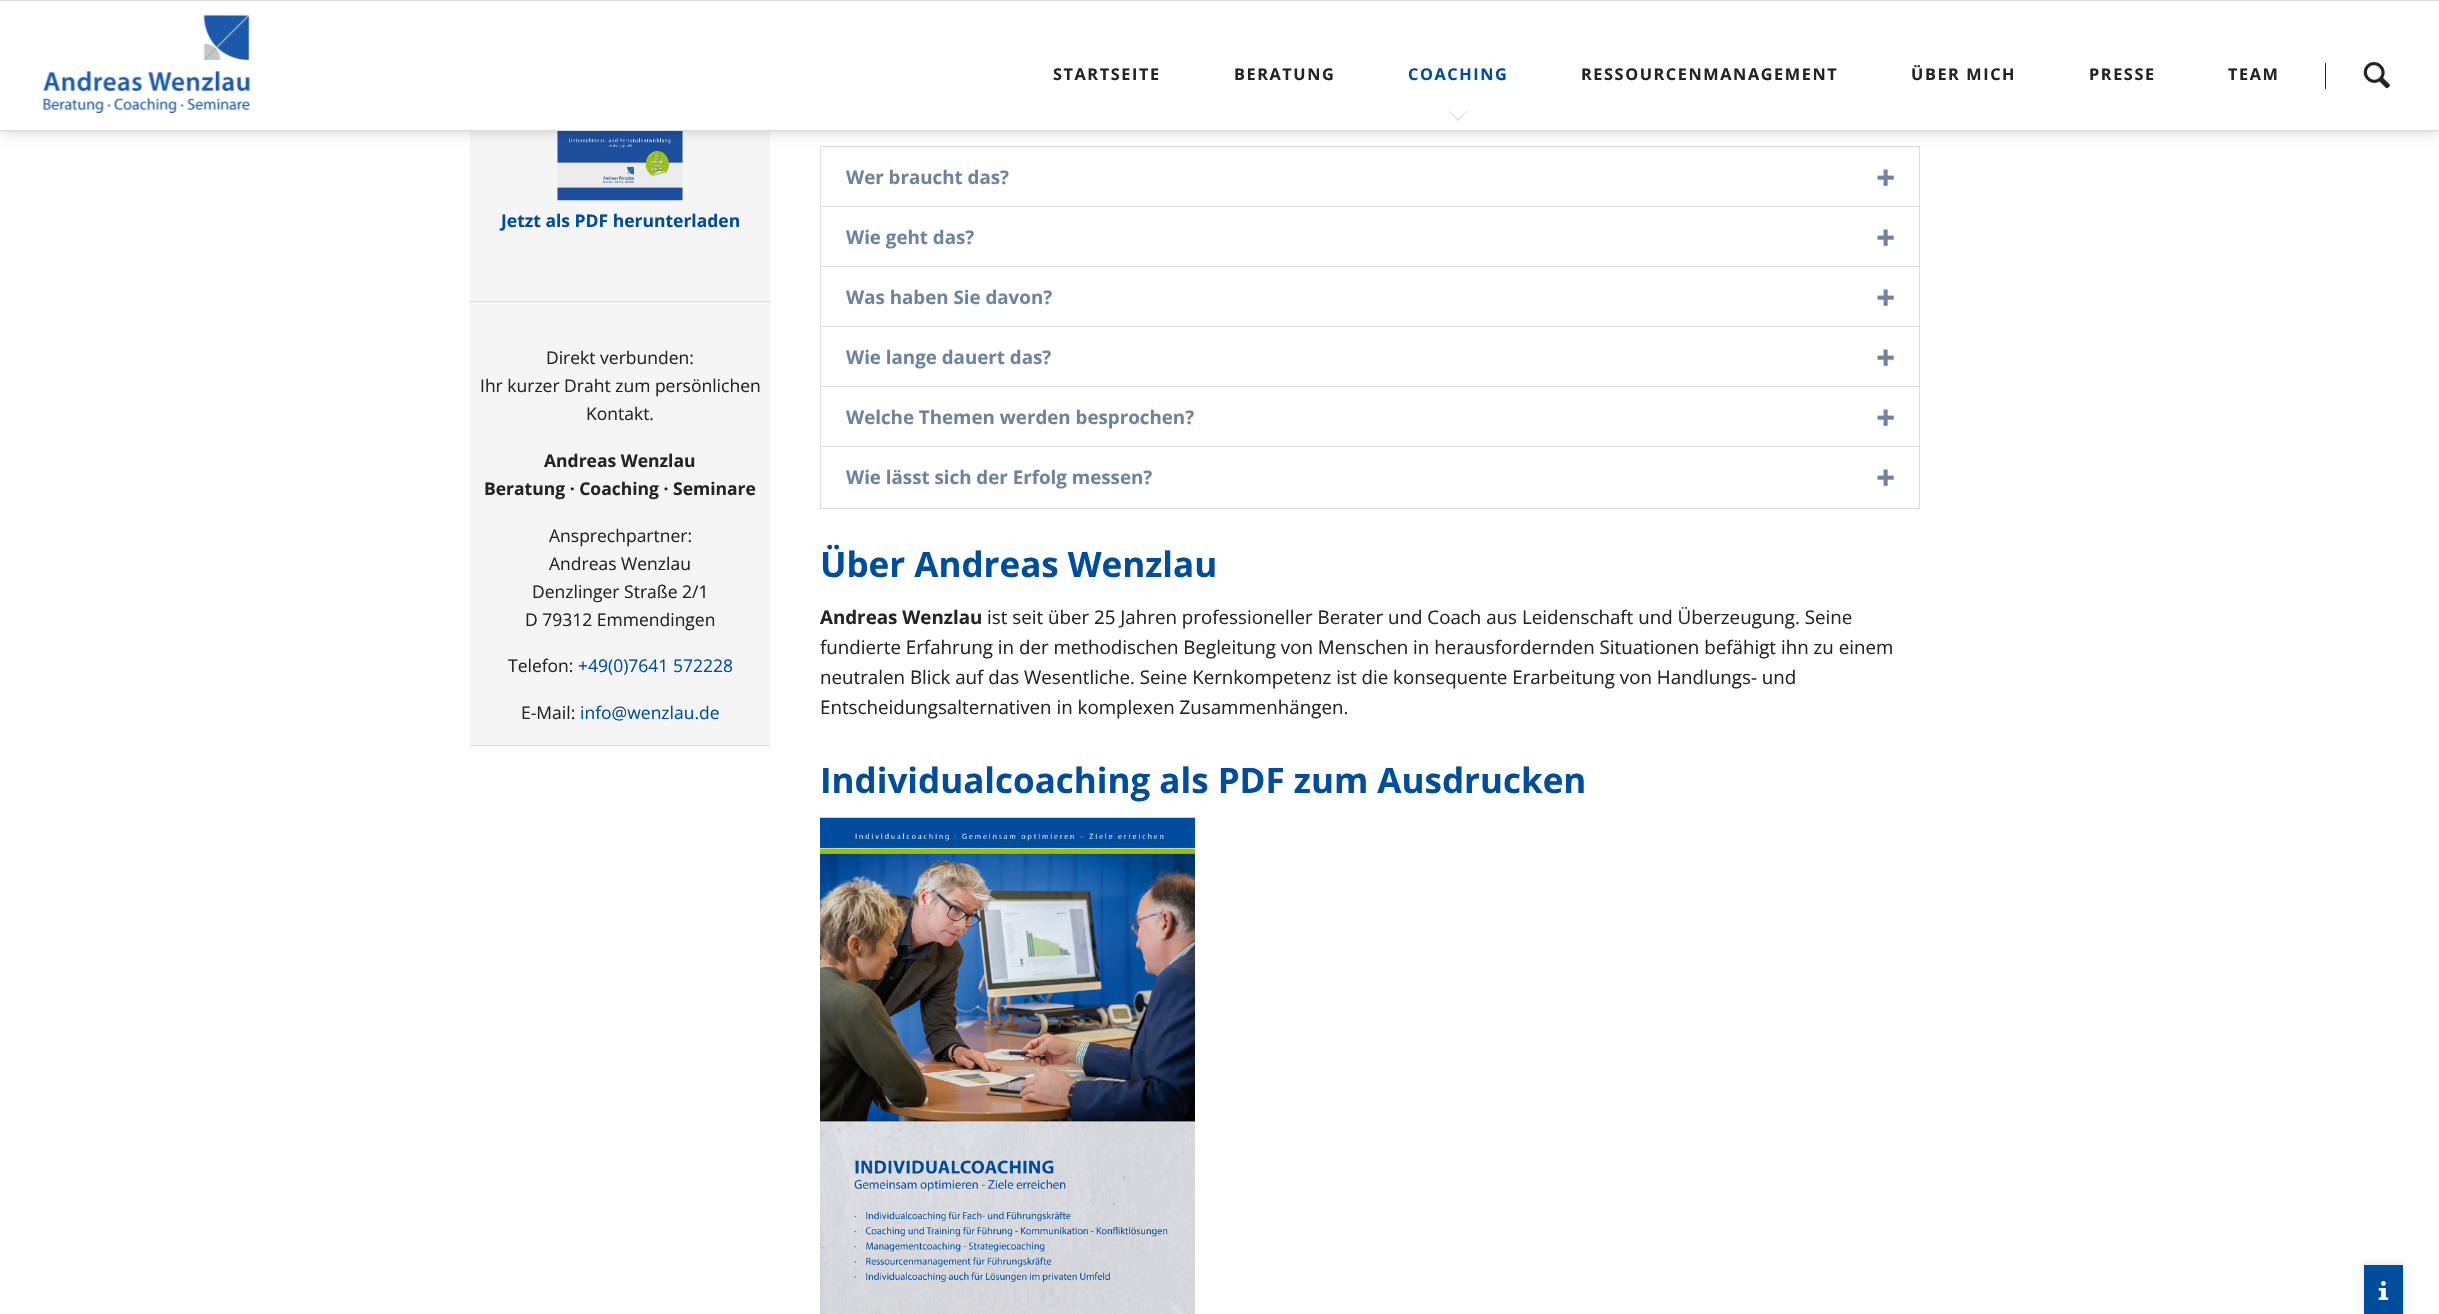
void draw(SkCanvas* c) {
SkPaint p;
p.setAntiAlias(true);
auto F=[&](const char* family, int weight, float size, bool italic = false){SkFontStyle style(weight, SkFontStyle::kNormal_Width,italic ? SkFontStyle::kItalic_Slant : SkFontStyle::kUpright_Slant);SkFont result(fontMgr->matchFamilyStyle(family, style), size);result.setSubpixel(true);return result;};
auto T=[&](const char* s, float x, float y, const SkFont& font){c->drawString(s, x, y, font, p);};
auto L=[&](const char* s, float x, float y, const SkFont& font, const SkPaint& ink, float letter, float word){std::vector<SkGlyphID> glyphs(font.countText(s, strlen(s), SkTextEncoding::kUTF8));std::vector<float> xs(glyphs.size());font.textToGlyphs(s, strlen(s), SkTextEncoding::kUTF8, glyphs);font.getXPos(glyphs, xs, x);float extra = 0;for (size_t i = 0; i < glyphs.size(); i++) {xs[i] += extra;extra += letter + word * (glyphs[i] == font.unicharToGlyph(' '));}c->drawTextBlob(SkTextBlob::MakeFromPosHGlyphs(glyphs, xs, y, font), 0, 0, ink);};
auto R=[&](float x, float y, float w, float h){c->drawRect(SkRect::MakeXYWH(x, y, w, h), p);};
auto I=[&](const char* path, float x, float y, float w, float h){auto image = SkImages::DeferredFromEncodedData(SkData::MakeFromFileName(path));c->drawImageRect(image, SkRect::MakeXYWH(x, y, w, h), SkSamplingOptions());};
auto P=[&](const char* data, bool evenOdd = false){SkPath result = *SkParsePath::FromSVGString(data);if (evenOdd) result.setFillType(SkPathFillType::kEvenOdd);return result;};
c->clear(0xffffffff);
p.setColor(0xfff5f5f5);
R(470,131,300,614);
I("4.png",557,131,126,70);
p.setStroke(true);
p.setStrokeWidth(1);
p.setColor(0xffdcdcdc);
c->drawRect(SkRect::MakeXYWH(820.5,146.5,1099,62),p);
p.setStroke(false);
p.setColor(0x33000000);
p.setMaskFilter(SkMaskFilter::MakeBlur(kNormal_SkBlurStyle, 6));
c->drawRect(SkRect::MakeXYWH(0,0,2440,131),p);
p.setMaskFilter(nullptr);
p.setColor(0xffffffff);
R(0,1,2439,129);
p.setColor(0xffdcdcdc);
R(0,0,2439,1);
R(0,130,2439,1);
I("1.png",43,14,207,99);
auto f1 = F("Open Sans",700,16.25);
p.setColor(0xff242424);
L("STARTSEITE",1053,80,f1,p,1.6,0);
L("BERATUNG",1234,80,f1,p,1.6,0);
p.setColor(0xff004d9e);
L("COACHING",1408,80,f1,p,1.6,0);
p.setColor(0xffdcdcdc);
c->drawPath(P("M1467 110.5l.5 .5l-9.5 10l-1-1z"),p);
c->drawPath(P("M1449 110.5l10 9.5l-1 1l-9.5-10z"),p);
p.setColor(0xff242424);
L("RESSOURCENMANAGEMENT",1581,80,f1,p,1.6,0);
L("ÜBER MICH",1911,80,f1,p,1.6,0);
L("PRESSE",2089,80,f1,p,1.6,0);
L("TEAM",2228,80,f1,p,1.6,0);
R(2325,63,1,26);
I("2.png",2363,62,27,27);
p.setColor(0x1a000000);
p.setMaskFilter(SkMaskFilter::MakeBlur(kNormal_SkBlurStyle, 3));
c->drawRect(SkRect::MakeXYWH(2364,1263,39,50),p);
p.setMaskFilter(nullptr);
p.setColor(0xff004d9e);
R(2364,1265,39,49);
I("3.png",2378,1281,11,19);
p.setColor(0xffdcdcdc);
R(470,745,300,1);
auto f2 = F("Open Sans",700,17.5);
p.setColor(0xff004d9e);
T("Jetzt als PDF herunterladen",501,227,f2);
p.setColor(0xffdcdcdc);
R(470,301,300,1);
auto f3 = F("Open Sans",400,17.5);
p.setColor(0xff242424);
T("Direkt verbunden:",546,364,f3);
T("Ihr kurzer Draht zum persönlichen",480,392,f3);
T("Kontakt.",586,420,f3);
T("Andreas Wenzlau",544,467,f2);
T("Beratung · Coaching · Seminare",484,495,f2);
T("Ansprechpartner:",549,542,f3);
T("Andreas Wenzlau",549,570,f3);
T("Denzlinger Straße 2/1",532,598,f3);
T("D 79312 Emmendingen",525,626,f3);
T("Telefon:",508,672,f3);
p.setColor(0xff004d9e);
T("+49(0)7641 572228",578,672,f3);
p.setColor(0xff242424);
T("E-Mail:",521,719,f3);
p.setColor(0xff004d9e);
T("info@wenzlau.de",580,719,f3);
auto f4 = F("Open Sans",700,18.75);
p.setColor(0xff70839e);
T("Wer braucht das?",846,184,f4);
I("5.png",1877,169,17,17);
p.setColor(0xffffffff);
R(821,208,1098,1);
p.setStroke(true);
p.setColor(0xffdcdcdc);
c->drawRect(SkRect::MakeXYWH(820.5,206.5,1099,62),p);
p.setStroke(false);
p.setColor(0xff70839e);
T("Wie geht das?",846,244,f4);
I("5.png",1877,229,17,17);
p.setColor(0xffffffff);
R(821,268,1098,1);
p.setStroke(true);
p.setColor(0xffdcdcdc);
c->drawRect(SkRect::MakeXYWH(820.5,266.5,1099,62),p);
p.setStroke(false);
p.setColor(0xff70839e);
T("Was haben Sie davon?",846,304,f4);
I("5.png",1877,289,17,17);
p.setColor(0xffffffff);
R(821,328,1098,1);
p.setStroke(true);
p.setColor(0xffdcdcdc);
c->drawRect(SkRect::MakeXYWH(820.5,326.5,1099,62),p);
p.setStroke(false);
p.setColor(0xff70839e);
T("Wie lange dauert das?",846,364,f4);
I("5.png",1877,349,17,17);
p.setColor(0xffffffff);
R(821,388,1098,1);
p.setStroke(true);
p.setColor(0xffdcdcdc);
c->drawRect(SkRect::MakeXYWH(820.5,386.5,1099,62),p);
p.setStroke(false);
p.setColor(0xff70839e);
T("Welche Themen werden besprochen?",846,424,f4);
I("5.png",1877,409,17,17);
p.setColor(0xffffffff);
R(821,448,1098,1);
p.setStroke(true);
p.setColor(0xffdcdcdc);
c->drawRect(SkRect::MakeXYWH(820.5,446.5,1099,62),p);
p.setStroke(false);
p.setColor(0xff70839e);
T("Wie lässt sich der Erfolg messen?",846,484,f4);
I("5.png",1877,469,17,17);
auto f5 = F("Open Sans",700,35);
p.setColor(0xff004d9e);
T("Über Andreas Wenzlau",820,577,f5);
p.setColor(0xff242424);
T("Andreas Wenzlau",820,624,f4);
auto f6 = F("Open Sans",400,18.75);
T("ist seit über 25 Jahren professioneller Berater und Coach aus Leidenschaft und Überzeugung. Seine",987,624,f6);
T("fundierte Erfahrung in der methodischen Begleitung von Menschen in herausfordernden Situationen befähigt ihn zu einem",820,654,f6);
T("neutralen Blick auf das Wesentliche. Seine Kernkompetenz ist die konsequente Erarbeitung von Handlungs- und",820,684,f6);
T("Entscheidungsalternativen in komplexen Zusammenhängen.",820,714,f6);
p.setColor(0xff004d9e);
T("Individualcoaching als PDF zum Ausdrucken",820,793,f5);
I("6.png",820,817,375,497);
}
